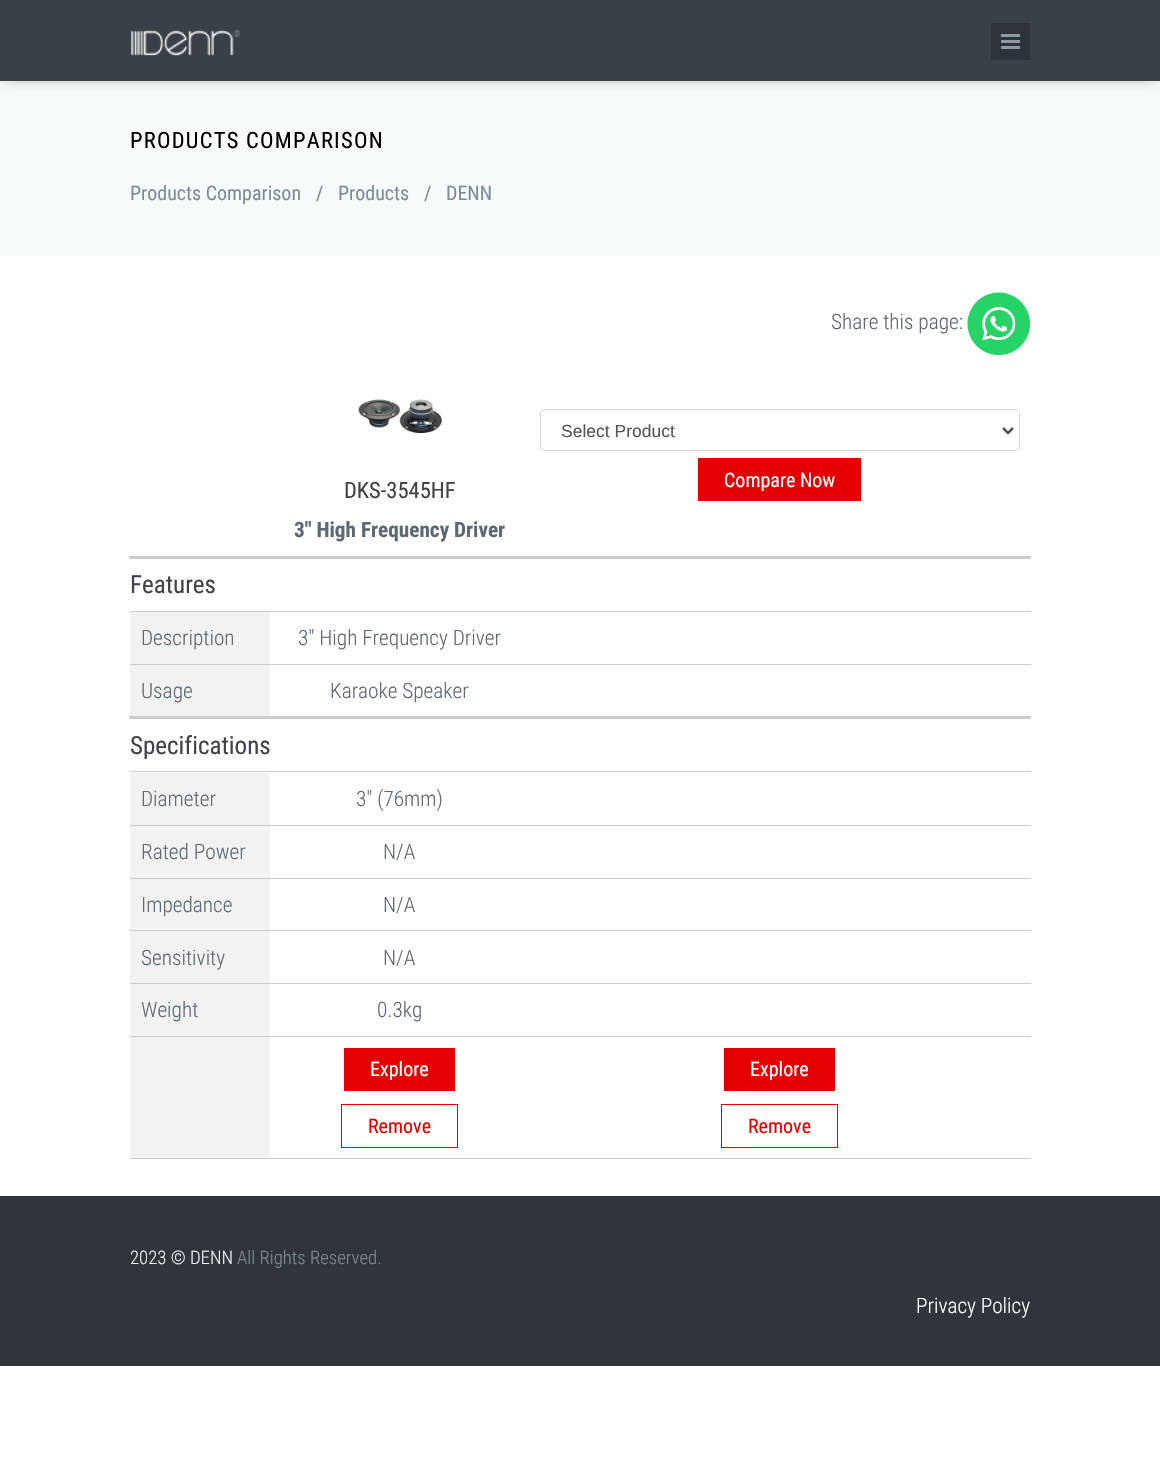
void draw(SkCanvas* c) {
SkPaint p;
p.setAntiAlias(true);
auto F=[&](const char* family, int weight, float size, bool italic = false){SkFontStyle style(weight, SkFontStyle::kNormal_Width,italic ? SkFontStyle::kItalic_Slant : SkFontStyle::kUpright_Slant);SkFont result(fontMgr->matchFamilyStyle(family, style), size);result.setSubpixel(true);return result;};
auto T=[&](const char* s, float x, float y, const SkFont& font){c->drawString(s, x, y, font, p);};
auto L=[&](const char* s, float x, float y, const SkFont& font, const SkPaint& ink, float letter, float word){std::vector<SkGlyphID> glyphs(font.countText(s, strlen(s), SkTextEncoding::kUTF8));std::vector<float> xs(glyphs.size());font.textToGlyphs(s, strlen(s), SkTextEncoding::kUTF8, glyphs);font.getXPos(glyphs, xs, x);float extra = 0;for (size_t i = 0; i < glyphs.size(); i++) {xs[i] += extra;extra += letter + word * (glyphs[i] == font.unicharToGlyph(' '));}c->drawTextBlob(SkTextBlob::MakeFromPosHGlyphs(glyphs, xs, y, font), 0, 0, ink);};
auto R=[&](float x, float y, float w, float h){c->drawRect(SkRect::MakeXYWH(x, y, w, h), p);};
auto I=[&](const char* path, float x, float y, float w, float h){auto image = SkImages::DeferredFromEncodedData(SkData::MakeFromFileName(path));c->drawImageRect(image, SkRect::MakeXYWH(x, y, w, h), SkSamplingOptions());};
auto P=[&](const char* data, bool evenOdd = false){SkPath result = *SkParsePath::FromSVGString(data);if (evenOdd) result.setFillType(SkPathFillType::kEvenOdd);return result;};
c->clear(0xffffffff);
p.setColor(0xfff7fafb);
R(0,82,1160,172);
p.setColor(0xfff4f8f9);
R(0,81,1160,1);
p.setColor(0x40000000);
p.setMaskFilter(SkMaskFilter::MakeBlur(kNormal_SkBlurStyle, 5.5));
c->drawRect(SkRect::MakeXYWH(5,9,1150,71),p);
p.setMaskFilter(nullptr);
p.setColor(0xff394048);
R(0,0,1160,81);
I("1.png",131,30,109,26);
p.setColor(0xff2e333a);
R(991,23,39,37);
p.setColor(0xff8e99a6);
R(1001,34,19,3);
R(1001,40,19,3);
R(1001,46,19,3);
p.setColor(0xfff4f8f9);
R(0,254,1160,1);
auto f1 = F("Roboto Condensed",400,22.5);
p.setColor(0xff000000);
L("PRODUCTS COMPARISON",130,148,f1,p,1.25,0);
auto f2 = F("Roboto Condensed",400,20);
p.setColor(0xff7f8c97);
T("Products Comparison",130,200,f2);
T("/",316,200,f2);
T("Products",338,200,f2);
T("/",424,200,f2);
T("DENN",446,200,f2);
auto f3 = F("Roboto Condensed",300,21.25);
p.setColor(0xff5c6873);
T("Share this page:",831,329,f3);
I("2.png",967,292,63,63);
p.setStroke(true);
p.setStrokeWidth(1);
p.setColor(0xffd0d7de);
c->drawRoundRect(SkRect::MakeXYWH(540.5,409.5,479,41),4.5,4.5,p);
p.setStrokeWidth(2.5);
p.setColor(0xff555555);
c->drawPath(P("M1003 428l5 5l5-5"),p);
auto f4 = F("Liberation Sans",400,17.5);
p.setStroke(false);
T("Select Product",561,437,f4);
p.setColor(0xffe50000);
R(698,458,163,43);
p.setColor(0xffffffff);
T("Compare Now",724,487,f2);
I("3.png",358,399,84,35);
p.setColor(0xff3f444a);
T("DKS-3545HF",344,498,f1);
auto f5 = F("Roboto Condensed",700,21.25);
p.setColor(0xff5c6873);
T("3\" High Frequency Driver",294,537,f5);
p.setColor(0xffcccccc);
R(130,611,901,1);
R(129,556,902,3);
auto f6 = F("Roboto Condensed",400,25);
p.setColor(0xff3f444a);
T("Features",130,593,f6);
p.setColor(0xfff2f2f2);
R(130,612,140,52);
p.setColor(0xff5c6873);
T("Description",141,645,f3);
T("3\" High Frequency Driver",298,645,f3);
p.setColor(0xffcccccc);
R(130,664,901,1);
p.setColor(0xfff2f2f2);
R(130,665,140,51);
p.setColor(0xff5c6873);
T("Usage",141,698,f3);
T("Karaoke Speaker",330,698,f3);
p.setColor(0xffcccccc);
R(130,771,901,1);
R(129,716,902,3);
p.setColor(0xff3f444a);
T("Specifications",130,754,f6);
p.setColor(0xfff2f2f2);
R(130,773,140,52);
p.setColor(0xff5c6873);
T("Diameter",141,806,f3);
T("3\" (76mm)",356,806,f3);
p.setColor(0xffcccccc);
R(130,825,901,1);
p.setColor(0xfff2f2f2);
R(130,826,140,52);
p.setColor(0xff5c6873);
T("Rated Power",141,859,f3);
T("N/A",383,859,f3);
p.setColor(0xffcccccc);
R(130,878,901,1);
p.setColor(0xfff2f2f2);
R(130,879,140,51);
p.setColor(0xff5c6873);
T("Impedance",141,912,f3);
T("N/A",383,912,f3);
p.setColor(0xffcccccc);
R(130,930,901,1);
p.setColor(0xfff2f2f2);
R(130,931,140,52);
p.setColor(0xff5c6873);
T("Sensitivity",141,965,f3);
T("N/A",383,965,f3);
p.setColor(0xffcccccc);
R(130,983,901,1);
p.setColor(0xfff2f2f2);
R(130,984,140,52);
p.setColor(0xff5c6873);
T("Weight",141,1017,f3);
T("0.3kg",377,1017,f3);
p.setColor(0xffcccccc);
R(130,1036,901,1);
p.setColor(0xfff2f2f2);
R(130,1037,140,121);
p.setColor(0xffe50000);
R(344,1048,111,43);
p.setColor(0xffffffff);
T("Explore",370,1076,f2);
p.setStroke(true);
p.setStrokeWidth(1);
p.setColor(0xffe50000);
c->drawRect(SkRect::MakeXYWH(341.5,1104.5,116,43),p);
p.setStroke(false);
T("Remove",368,1133,f2);
p.setColor(0xffcccccc);
R(130,1158,901,1);
p.setColor(0xffe50000);
R(724,1048,111,43);
p.setColor(0xffffffff);
T("Explore",750,1076,f2);
p.setStroke(true);
p.setColor(0xffe50000);
c->drawRect(SkRect::MakeXYWH(721.5,1104.5,116,43),p);
p.setStroke(false);
T("Remove",748,1133,f2);
p.setColor(0xff2f353b);
R(0,1196,1160,170);
auto f7 = F("Roboto Condensed",300,18.75);
p.setColor(0xffeeeeee);
T("2023 © DENN",130,1264,f7);
p.setColor(0xff7f8c97);
T("All Rights Reserved.",237,1264,f7);
p.setColor(0xffffffff);
T("Privacy Policy",916,1313,f3);
}
